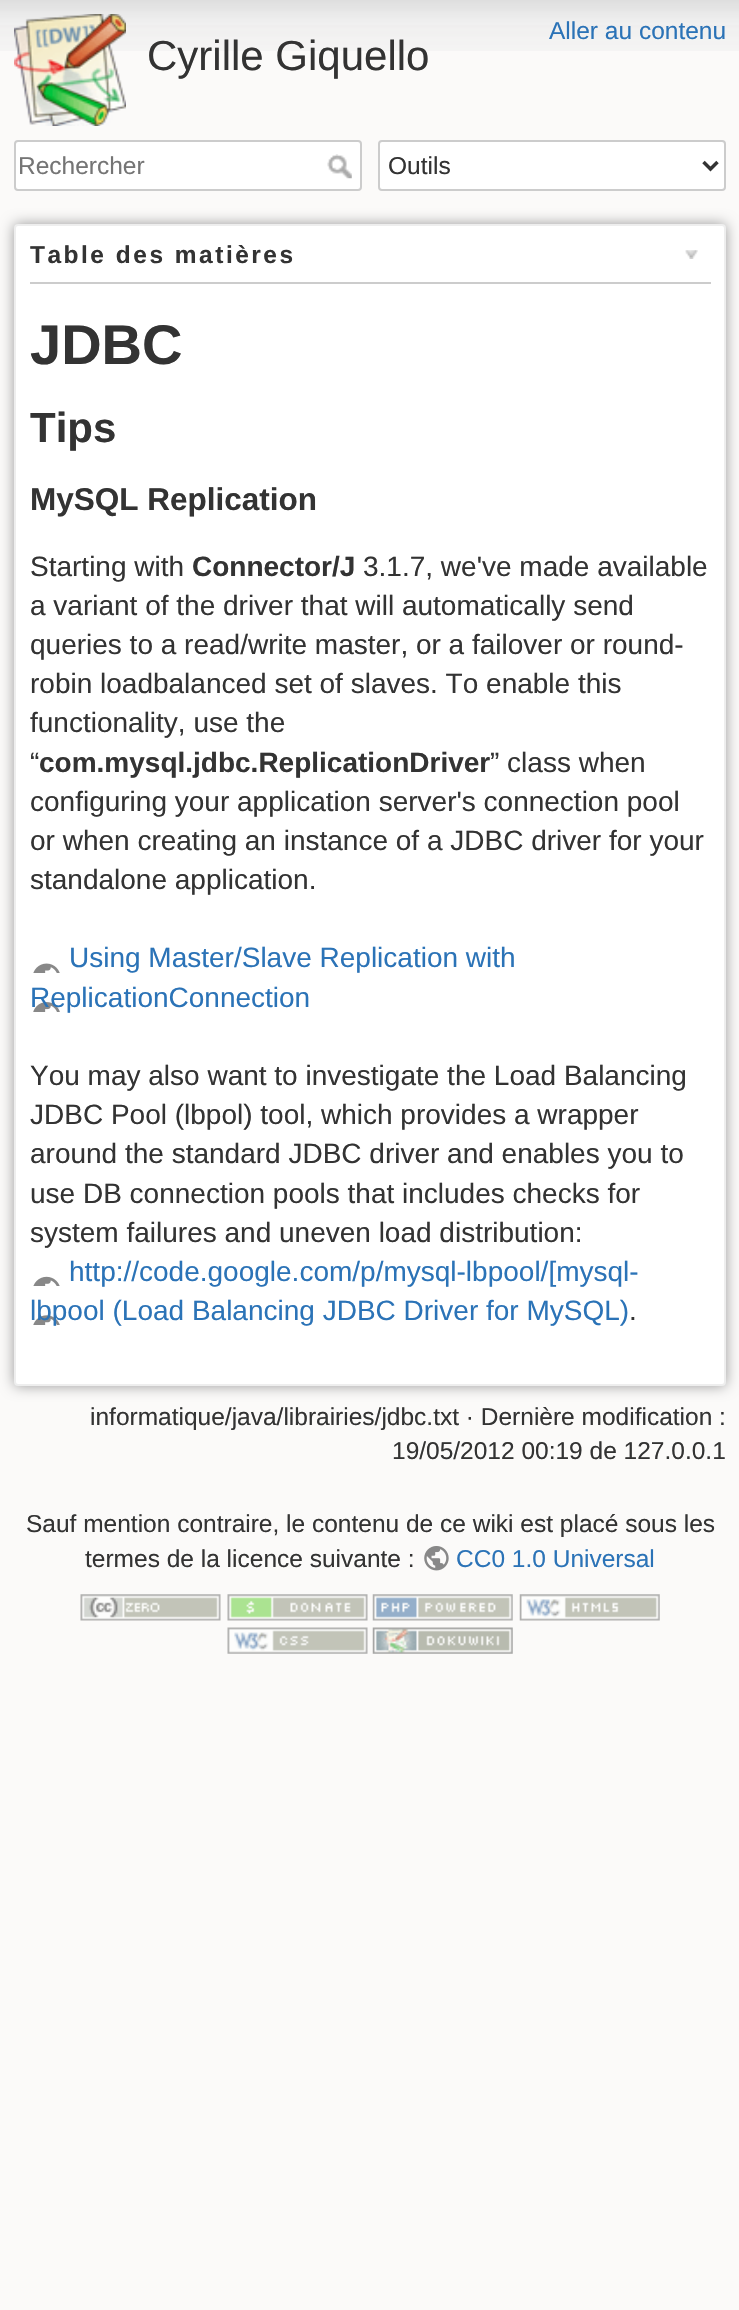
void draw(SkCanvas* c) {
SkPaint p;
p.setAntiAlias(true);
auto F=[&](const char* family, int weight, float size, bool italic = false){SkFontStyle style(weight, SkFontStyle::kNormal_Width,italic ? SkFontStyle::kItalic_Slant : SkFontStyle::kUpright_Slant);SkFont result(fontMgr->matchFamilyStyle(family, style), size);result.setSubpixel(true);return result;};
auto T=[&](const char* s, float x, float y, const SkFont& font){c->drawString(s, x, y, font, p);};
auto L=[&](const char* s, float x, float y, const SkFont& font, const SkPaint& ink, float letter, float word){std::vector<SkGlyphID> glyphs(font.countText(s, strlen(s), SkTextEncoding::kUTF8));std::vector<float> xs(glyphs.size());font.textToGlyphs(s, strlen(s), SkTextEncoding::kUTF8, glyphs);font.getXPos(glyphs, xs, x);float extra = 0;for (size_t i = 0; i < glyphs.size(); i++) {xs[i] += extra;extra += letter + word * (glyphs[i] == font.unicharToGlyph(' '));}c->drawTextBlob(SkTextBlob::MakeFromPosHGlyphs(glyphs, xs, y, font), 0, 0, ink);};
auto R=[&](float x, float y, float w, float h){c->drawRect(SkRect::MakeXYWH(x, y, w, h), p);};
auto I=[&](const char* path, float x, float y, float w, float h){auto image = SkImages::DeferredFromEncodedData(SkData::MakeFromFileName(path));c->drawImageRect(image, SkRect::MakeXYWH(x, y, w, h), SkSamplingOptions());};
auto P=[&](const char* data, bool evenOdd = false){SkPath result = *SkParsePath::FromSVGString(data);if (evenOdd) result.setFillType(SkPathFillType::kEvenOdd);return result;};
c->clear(0xfffbfaf9);
I("1.png",0,0,739,51);
auto f1 = F("Liberation Sans",400,24.5);
p.setColor(0xff2b73b7);
T("Aller au contenu",549,39,f1);
I("2.png",14,14,112,112);
auto f2 = F("Liberation Sans",400,42);
p.setColor(0xff333333);
T("Cyrille Giquello",147,70,f2);
p.setColor(0xffffffff);
c->drawRoundRect(SkRect::MakeXYWH(15,141,346,49),3,3,p);
p.setStroke(true);
p.setStrokeWidth(2);
p.setColor(0xffcccccc);
c->drawRoundRect(SkRect::MakeXYWH(15,141,346,49),3,3,p);
p.setStroke(false);
p.setColor(0xff757575);
T("Rechercher",18,174,f1);
I("3.png",327,154,25,25);
p.setColor(0xffffffff);
c->drawRoundRect(SkRect::MakeXYWH(379,141,346,49),3,3,p);
p.setStroke(true);
p.setColor(0xffcccccc);
c->drawRoundRect(SkRect::MakeXYWH(379,141,346,49),3,3,p);
p.setStrokeWidth(3.5);
p.setColor(0xff333333);
c->drawPath(P("M703.5 162l7 7l7-7"),p);
p.setStroke(false);
T("Outils",388,174,f1);
p.setColor(0xff999999);
p.setMaskFilter(SkMaskFilter::MakeBlur(kNormal_SkBlurStyle, 7));
c->drawRoundRect(SkRect::MakeXYWH(14,224,712,1162),4,4,p);
p.setMaskFilter(nullptr);
p.setColor(0xffffffff);
c->drawRoundRect(SkRect::MakeXYWH(15,225,710,1160),3,3,p);
p.setStroke(true);
p.setStrokeWidth(2);
p.setColor(0xffeeeeee);
c->drawRoundRect(SkRect::MakeXYWH(15,225,710,1160),3,3,p);
p.setStroke(false);
p.setColor(0xffcccccc);
R(30,282,681,2);
auto f3 = F("Liberation Sans",700,24.5);
p.setColor(0xff333333);
L("Table des matières",30,263,f3,p,2.5,0);
I("4.png",685,250,13,9);
auto f4 = F("Liberation Sans",700,56);
T("JDBC",30,364,f4);
auto f5 = F("Liberation Sans",700,42);
T("Tips",30,442,f5);
auto f6 = F("Liberation Sans",700,31.5);
T("MySQL Replication",30,510,f6);
auto f7 = F("Liberation Sans",400,28);
T("Starting with",30,576,f7);
auto f8 = F("Liberation Sans",700,28);
T("Connector/J",192,576,f8);
T("3.1.7, we've made available",363,576,f7);
T("a variant of the driver that will automatically send",30,615,f7);
T("queries to a read/write master, or a failover or round-",30,654,f7);
T("robin loadbalanced set of slaves. To enable this",30,693,f7);
T("functionality, use the",30,732,f7);
T("“",30,772,f7);
T("com.mysql.jdbc.ReplicationDriver",39,772,f8);
T("” class when",490,772,f7);
T("configuring your application server's connection pool",30,811,f7);
T("or when creating an instance of a JDBC driver for your",30,850,f7);
T("standalone application.",30,889,f7);
p.setColor(0xff2b73b7);
T("Using Master/Slave Replication with",69,967,f7);
I("5.png",33,963,27,49);
T("ReplicationConnection",30,1007,f7);
p.setColor(0xff333333);
T("You may also want to investigate the Load Balancing",30,1085,f7);
T("JDBC Pool (lbpol) tool, which provides a wrapper",30,1124,f7);
T("around the standard JDBC driver and enables you to",30,1163,f7);
T("use DB connection pools that includes checks for",30,1203,f7);
T("system failures and uneven load distribution:",30,1242,f7);
I("6.png",33,1276,27,49);
p.setColor(0xff2b73b7);
T("http://code.google.com/p/mysql-lbpool/[mysql-",69,1281,f7);
T("lbpool (Load Balancing JDBC Driver for MySQL)",30,1320,f7);
p.setColor(0xff333333);
T(".",629,1320,f7);
T("informatique/java/librairies/jdbc.txt · Dernière modification :",90,1425,f1);
T("19/05/2012 00:19 de 127.0.0.1",392,1459,f1);
T("Sauf mention contraire, le contenu de ce wiki est placé sous les",26,1532,f1);
T("termes de la licence suivante :",85,1567,f1);
I("7.png",424,1546,25,25);
p.setColor(0xff2b73b7);
T("CC0 1.0 Universal",456,1567,f1);
I("8.png",80,1594,141,27);
I("9.png",227,1594,141,27);
I("10.png",372,1594,141,27);
I("11.png",519,1594,141,27);
I("12.png",227,1627,141,27);
I("13.png",372,1627,141,27);
}
